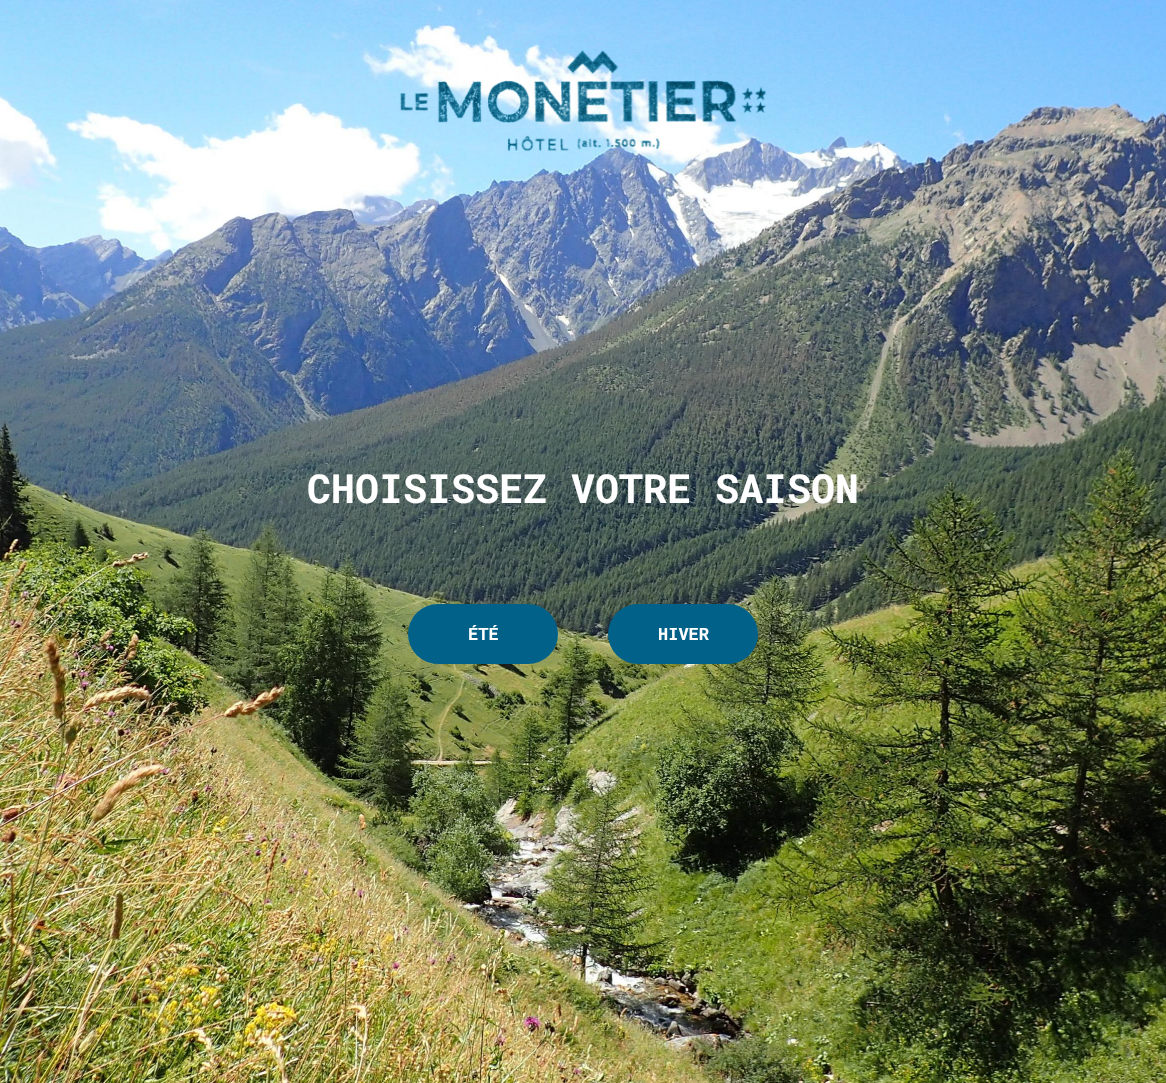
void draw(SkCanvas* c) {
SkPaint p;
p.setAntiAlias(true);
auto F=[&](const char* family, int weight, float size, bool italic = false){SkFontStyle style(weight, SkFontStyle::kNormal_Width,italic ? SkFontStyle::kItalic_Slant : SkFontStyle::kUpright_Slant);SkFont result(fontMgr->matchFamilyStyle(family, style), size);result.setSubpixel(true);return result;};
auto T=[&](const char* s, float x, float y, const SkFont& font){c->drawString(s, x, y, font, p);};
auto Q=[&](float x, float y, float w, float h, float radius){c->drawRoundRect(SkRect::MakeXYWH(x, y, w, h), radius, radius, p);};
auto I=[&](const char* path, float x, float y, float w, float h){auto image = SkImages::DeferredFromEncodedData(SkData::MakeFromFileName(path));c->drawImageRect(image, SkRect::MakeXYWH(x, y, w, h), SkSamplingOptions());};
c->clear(0xffffffff);
I("1.png",0,0,1166,1083);
I("2.png",399,50,368,102);
auto f1 = F("Roboto Mono",700,40);
p.setColor(0xffffffff);
T("CHOISISSEZ VOTRE SAISON",307,503,f1);
p.setColor(0xff016188);
Q(408,604,150,60,30);
auto f2 = F("Roboto Mono",700,17);
p.setColor(0xffffffff);
T("ÉTÉ",468,640,f2);
p.setColor(0xff016188);
Q(608,604,150,60,30);
p.setColor(0xffffffff);
T("HIVER",658,640,f2);
}
